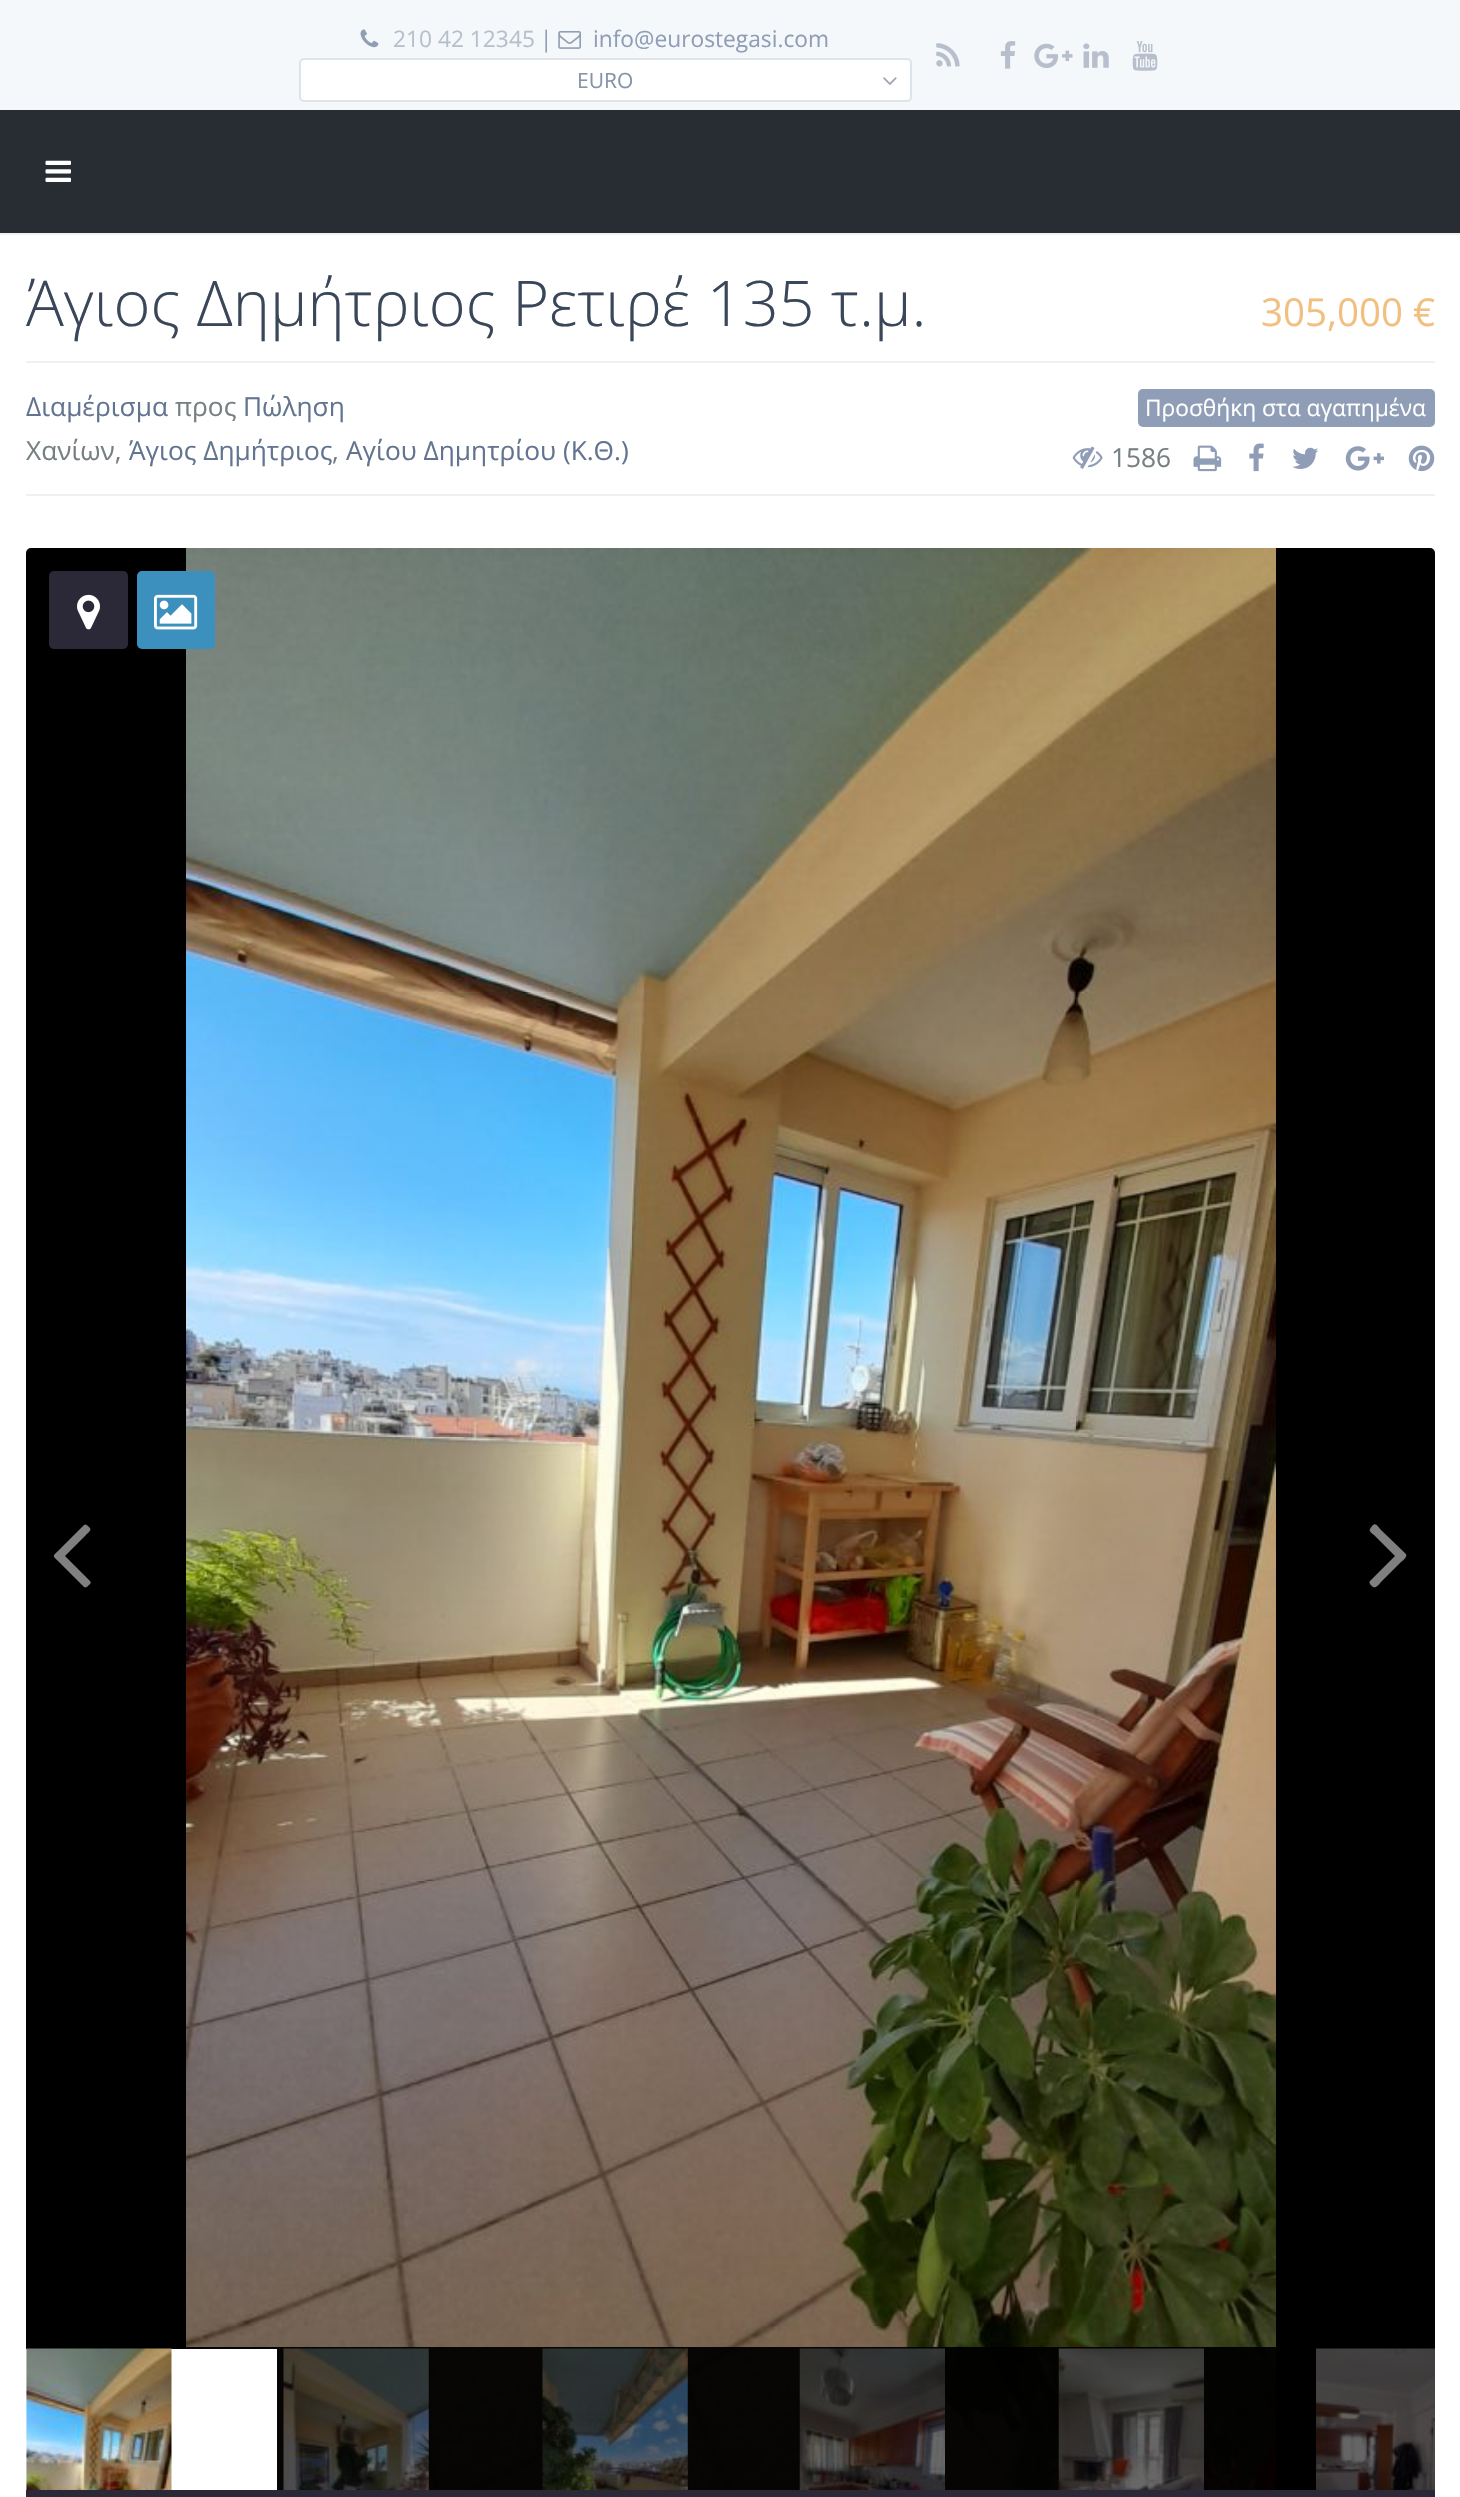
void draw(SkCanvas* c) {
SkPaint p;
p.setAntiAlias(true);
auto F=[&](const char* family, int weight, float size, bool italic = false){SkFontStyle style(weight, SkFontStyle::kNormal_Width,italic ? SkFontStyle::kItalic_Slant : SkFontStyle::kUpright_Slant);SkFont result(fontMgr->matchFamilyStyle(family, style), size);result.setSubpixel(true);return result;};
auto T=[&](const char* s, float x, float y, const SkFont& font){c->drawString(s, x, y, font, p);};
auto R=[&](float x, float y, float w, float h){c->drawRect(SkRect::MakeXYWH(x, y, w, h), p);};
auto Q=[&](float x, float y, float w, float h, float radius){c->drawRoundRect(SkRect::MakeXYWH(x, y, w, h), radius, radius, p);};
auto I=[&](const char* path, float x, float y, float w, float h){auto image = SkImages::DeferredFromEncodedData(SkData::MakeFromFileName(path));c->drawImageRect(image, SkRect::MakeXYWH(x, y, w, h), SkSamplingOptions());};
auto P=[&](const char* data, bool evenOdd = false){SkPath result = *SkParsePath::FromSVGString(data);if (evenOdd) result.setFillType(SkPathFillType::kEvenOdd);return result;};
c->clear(0xffffffff);
p.setColor(0xfff0f0f0);
R(0,233,1460,2);
p.setColor(0xfff5f8fa);
R(0,0,1460,110);
I("1.png",360,29,19,19);
auto f1 = F("Open Sans",400,22.75);
p.setColor(0xffb7bfcc);
T("210 42 12345",393,47,f1);
p.setColor(0xff8f9eb6);
T("|",540,47,f1);
I("2.png",558,31,23,18);
T("info@eurostegasi.com",593,47,f1);
p.setColor(0xffffffff);
c->drawRoundRect(SkRect::MakeXYWH(300,59,611,42),4,4,p);
p.setStroke(true);
p.setStrokeWidth(2);
p.setColor(0xffdde4e9);
c->drawRoundRect(SkRect::MakeXYWH(300,59,611,42),4,4,p);
auto f2 = F("Open Sans",400,21);
p.setStroke(false);
p.setColor(0xff8593a9);
T("EURO",577,88,f2);
I("3.png",883,77,14,8);
I("4.png",936,43,24,24);
I("5.png",1000,41,16,28);
I("6.png",1034,43,39,25);
I("7.png",1083,43,26,25);
I("8.png",1132,41,26,30);
p.setColor(0xff282d33);
R(0,110,1460,123);
I("9.png",45,160,26,22);
auto f3 = F("Open Sans",300,63);
p.setColor(0xff3a4659);
T("Άγιος Δημήτριος Ρετιρέ 135 τ.μ.",26,326,f3);
auto f4 = F("Open Sans",400,38.5);
p.setColor(0xfff1bf7f);
T("305,000 €",1261,326,f4);
p.setColor(0xfff0f0f0);
R(26,361,1409,2);
R(26,494,1409,2);
auto f5 = F("Open Sans",400,26.25);
p.setColor(0xff62748f);
T("Διαμέρισμα",26,416,f5);
p.setColor(0xff768082);
T("προς",175,416,f5);
p.setColor(0xff62748f);
T("Πώληση",243,416,f5);
p.setColor(0xff8f9eb6);
Q(1138,389,297,38,5);
p.setColor(0xffffffff);
T("Προσθήκη στα αγαπημένα",1145,416,f1);
p.setColor(0xff768082);
T("Χανίων,",26,460,f5);
p.setColor(0xff62748f);
T("Άγιος Δημήτριος",129,460,f5);
p.setColor(0xff768082);
T(",",332,460,f5);
p.setColor(0xff62748f);
T("Αγίου Δημητρίου (Κ.Θ.)",346,460,f5);
I("10.png",1072,446,31,23);
p.setColor(0xff768082);
T("1586",1111,467,f5);
I("11.png",1193,445,29,27);
I("12.png",1249,443,15,29);
I("13.png",1292,447,27,22);
I("14.png",1345,446,39,25);
I("15.png",1408,445,27,27);
p.setColor(0xff000000);
Q(26,548,1409,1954,5);
p.setColor(0xff2b2937);
Q(49,571,79,78,5);
I("16.png",77,594,23,36);
I("18.png",186,548,1090,1942);
p.setColor(0xff3c90be);
Q(137,571,78,78,5);
I("17.png",154,594,44,36);
p.setColor(0xff808080);
c->drawPath(P("M90 1528c2 3-4 6-4 7l-21 21l25 25c2 2-1 4-2 5c-1 1-3 2-4 1l-25-25c-7-7-7-5 0-12l25-25c2-2 5 2 6 3z"),p);
c->drawPath(P("M1406 1554c2 3-5 8-5 8l-20 20c0 0-5 7-8 5c-1-1-5-4-3-6l25-25l-21-21c0 0-6-4-4-6l2-3c4-4 5 0 9 4z"),p);
p.setColor(0xf2000000);
R(186,2347,1090,143);
p.setColor(0xffffffff);
R(26,2349,251,141);
I("19.png",26,2348,146,142);
I("20.png",283,2348,146,142);
I("21.png",542,2348,146,142);
I("22.png",799,2348,146,142);
I("23.png",1058,2348,146,142);
I("24.png",1316,2348,119,142);
p.setColor(0xff2b2937);
R(26,2490,1409,7);
}
